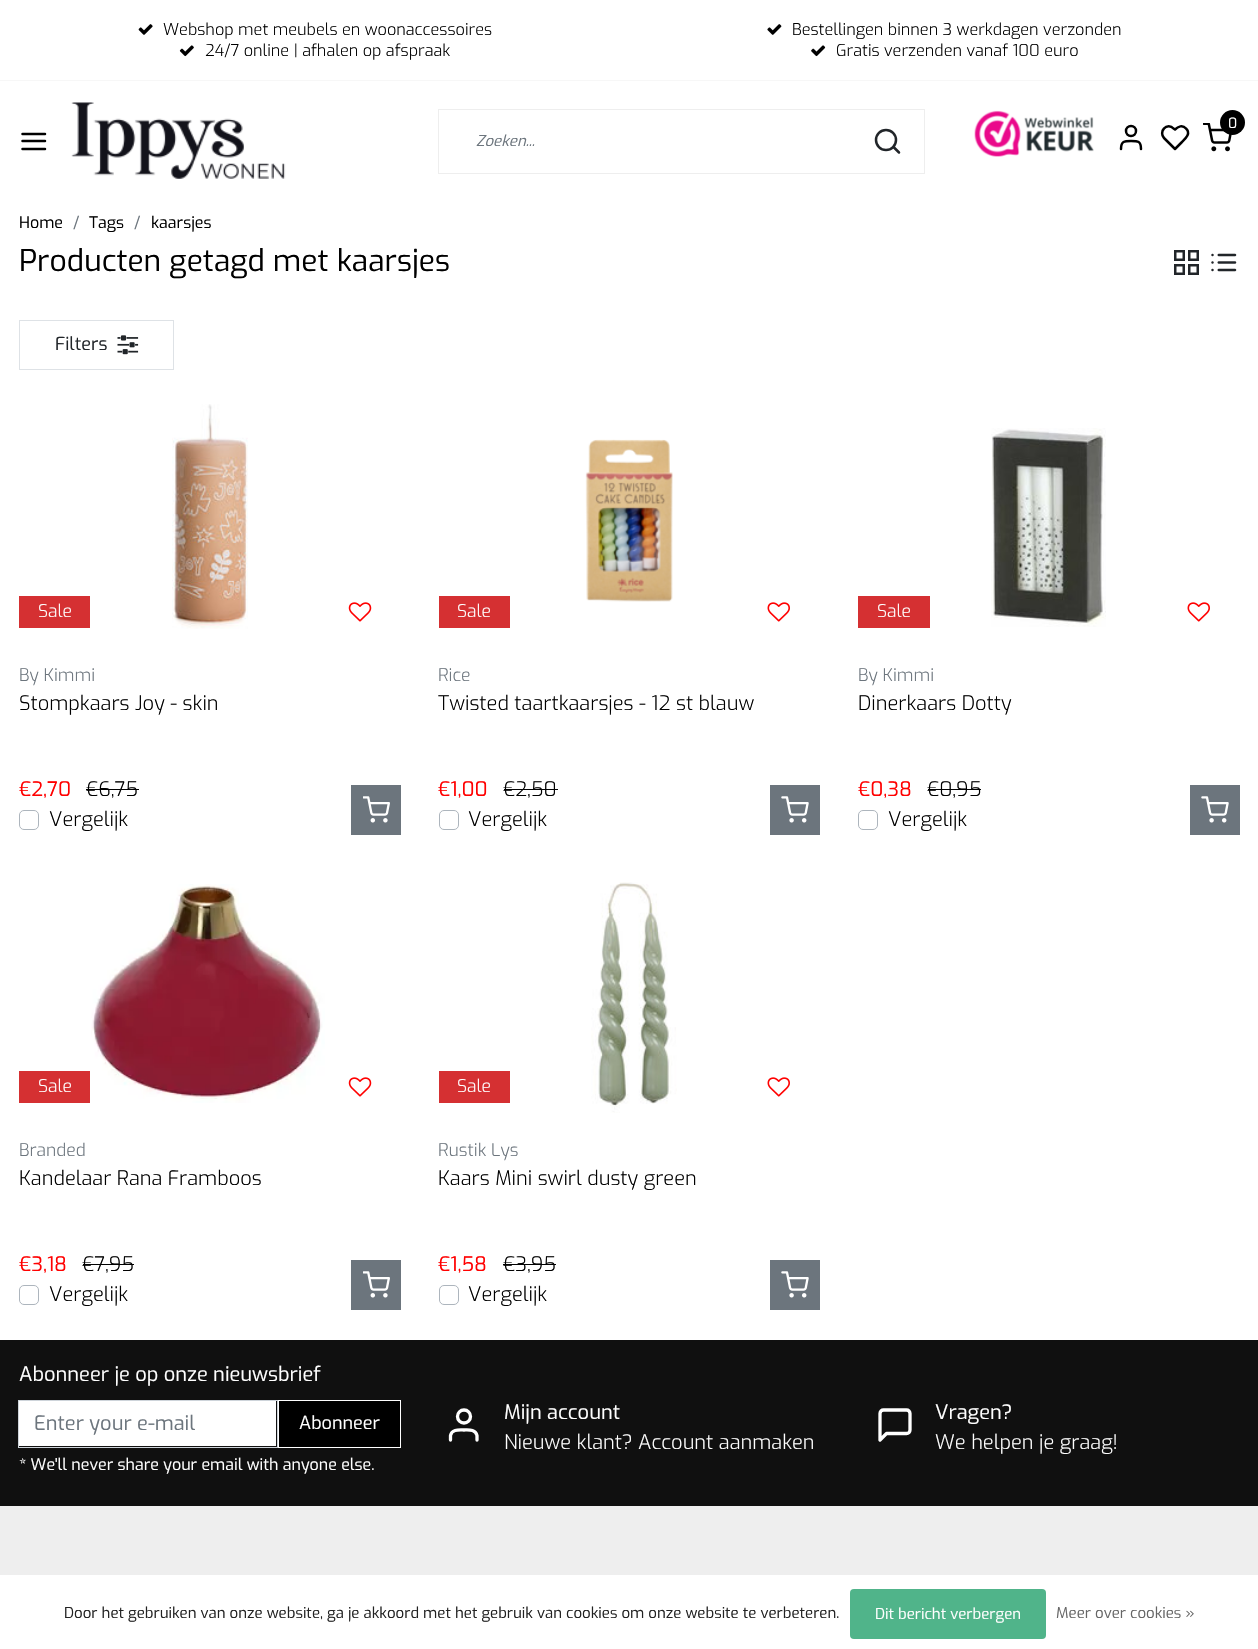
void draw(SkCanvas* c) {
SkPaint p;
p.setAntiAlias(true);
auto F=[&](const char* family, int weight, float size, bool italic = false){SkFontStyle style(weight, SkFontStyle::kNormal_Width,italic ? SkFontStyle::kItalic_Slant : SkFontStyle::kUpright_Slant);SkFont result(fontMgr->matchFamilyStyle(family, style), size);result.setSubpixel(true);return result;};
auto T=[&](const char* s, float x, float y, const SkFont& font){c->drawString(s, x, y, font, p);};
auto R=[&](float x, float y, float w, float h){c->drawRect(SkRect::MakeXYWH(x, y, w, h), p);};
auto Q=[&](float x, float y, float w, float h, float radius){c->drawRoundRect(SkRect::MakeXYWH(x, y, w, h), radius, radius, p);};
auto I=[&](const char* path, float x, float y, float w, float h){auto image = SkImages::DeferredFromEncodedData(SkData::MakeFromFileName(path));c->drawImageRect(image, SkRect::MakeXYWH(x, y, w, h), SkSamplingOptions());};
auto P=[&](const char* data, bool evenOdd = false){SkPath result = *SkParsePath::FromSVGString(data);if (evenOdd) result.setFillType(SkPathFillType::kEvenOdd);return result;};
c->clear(0xffffffff);
p.setColor(0xfff7f7f7);
R(0,80,1258,1);
I("1.png",138,24,15,11);
auto f1 = F("Exo",300,16.25);
p.setColor(0xff000000);
T("Webshop met meubels en woonaccessoires",163,35,f1);
I("2.png",767,24,15,11);
T("Bestellingen binnen 3 werkdagen verzonden",792,35,f1);
I("3.png",179,45,15,12);
T("24/7 online | afhalen op afspraak",205,56,f1);
I("4.png",811,45,15,12);
T("Gratis verzenden vanaf 100 euro",836,56,f1);
p.setStroke(true);
p.setStrokeWidth(2.5);
p.setStrokeCap(SkPaint::kRound_Cap);
p.setStrokeJoin(SkPaint::kRound_Join);
c->drawPath(P("M22.5 141h22.5m-22.5-7h22.5m-22.5 15h22.5"),p);
I("5.png",71,102,215,77);
I("6.png",974,110,120,47);
I("7.png",1203,123,29,29);
p.setStroke(false);
c->drawCircle(1232.5,122.5,12.5,p);
auto f2 = F("Exo",400,14);
p.setColor(0xffffffff);
T("0",1228,128,f2);
p.setStroke(true);
p.setColor(0xff000000);
c->drawPath(P("M1141 149c0-8-3-8-10-8c-6.5 0-10 0-10 8"),p);
p.setStrokeCap(SkPaint::kButt_Cap);
p.setStrokeJoin(SkPaint::kMiter_Join);
c->drawCircle(1131,131,5,p);
p.setStrokeCap(SkPaint::kRound_Cap);
p.setStrokeJoin(SkPaint::kRound_Join);
c->drawPath(P("M1186 128.5c-3.5-4-8-2-11 1l-1.5-1c-2.5-3-7-3-9.5 0c-2.5 2.5-2.5 7 0 9.5l11 11l6.5-6.5c3.5-3.5 10-9 4.5-14z"),p);
p.setStrokeWidth(1);
p.setStrokeCap(SkPaint::kButt_Cap);
p.setStrokeJoin(SkPaint::kMiter_Join);
p.setColor(0xffeeeeee);
c->drawRect(SkRect::MakeXYWH(438.5,109.5,486,64),p);
auto f3 = F("Exo",400,15,true);
p.setStroke(false);
p.setColor(0xff6c757d);
T("Zoeken...",476,146,f3);
p.setStroke(true);
p.setStrokeWidth(2.5);
p.setColor(0xff212529);
c->drawCircle(886,140,10,p);
p.setStrokeCap(SkPaint::kRound_Cap);
p.setStrokeJoin(SkPaint::kRound_Join);
c->drawPath(P("M899 152.5l-5.5-5.5"),p);
auto f4 = F("Exo",400,16);
p.setStroke(false);
p.setColor(0xff000000);
T("Home",19,228,f4);
p.setColor(0xff6c757d);
T("/",73,228,f4);
p.setColor(0xff000000);
T("Tags",89,228,f4);
p.setColor(0xff6c757d);
T("/",134,228,f4);
p.setColor(0xff000000);
T("kaarsjes",151,228,f4);
auto f5 = F("Exo",400,30);
T("Producten getagd met kaarsjes",19,271,f5);
p.setStroke(true);
p.setStrokeCap(SkPaint::kButt_Cap);
p.setStrokeJoin(SkPaint::kMiter_Join);
p.setColor(0xff212529);
c->drawRect(SkRect::MakeXYWH(1175.25,251.25,8.5,8.5),p);
c->drawRect(SkRect::MakeXYWH(1189.25,251.25,8.5,8.5),p);
c->drawRect(SkRect::MakeXYWH(1189.25,265.25,8.5,8.5),p);
c->drawRect(SkRect::MakeXYWH(1175.25,265.25,8.5,8.5),p);
I("8.png",1211,253,26,19);
p.setStrokeWidth(1);
p.setColor(0xffdee2e6);
c->drawRect(SkRect::MakeXYWH(19.5,320.5,154,49),p);
auto f6 = F("Exo",400,18);
p.setStroke(false);
p.setColor(0xff212529);
T("Filters",55,350,f6);
I("9.png",117,335,22,20);
p.setColor(0xffd53032);
R(19,596,71,32);
auto f7 = F("Exo",300,17.5);
p.setColor(0xffffffff);
T("Sale",38,617,f7);
I("10.png",172,404,76,225);
I("11.png",348,602,24,20);
p.setColor(0xff6c757d);
T("By Kimmi",19,681,f7);
auto f8 = F("Exo",300,20);
p.setColor(0xff000000);
T("Stompkaars Joy - skin",19,710,f8);
auto f9 = F("Exo",400,20);
p.setColor(0xffff0000);
T("€2,70",19,796,f9);
p.setColor(0xff000000);
T("€6,75",86,796,f8);
R(86,789,53,1);
p.setStroke(true);
p.setColor(0xffadb5bd);
c->drawRoundRect(SkRect::MakeXYWH(19.5,810.5,19,19),4.5,4.5,p);
p.setStroke(false);
p.setColor(0xff000000);
T("Vergelijk",49,826,f8);
p.setColor(0xff6c757d);
R(351,785,50,50);
I("12.png",363,796,27,27);
I("13.png",585,439,88,163);
p.setColor(0xffd53032);
R(439,596,71,32);
p.setColor(0xffffffff);
T("Sale",457,617,f7);
I("14.png",767,602,23,20);
p.setColor(0xff6c757d);
T("Rice",438,681,f7);
p.setColor(0xff000000);
T("Twisted taartkaarsjes - 12 st blauw",438,710,f8);
p.setColor(0xffff0000);
T("€1,00",438,796,f9);
p.setColor(0xff000000);
T("€2,50",503,796,f8);
R(504,789,54,1);
p.setStroke(true);
p.setColor(0xffadb5bd);
c->drawRoundRect(SkRect::MakeXYWH(439.5,810.5,19,19),4.5,4.5,p);
p.setStroke(false);
p.setColor(0xff000000);
T("Vergelijk",468,826,f8);
p.setColor(0xff6c757d);
R(770,785,50,50);
I("15.png",781,796,28,27);
p.setColor(0xffd53032);
R(858,596,72,32);
p.setColor(0xffffffff);
T("Sale",877,617,f7);
I("16.png",991,428,115,199);
I("14.png",1187,602,23,20);
p.setColor(0xff6c757d);
T("By Kimmi",858,681,f7);
p.setColor(0xff000000);
T("Dinerkaars Dotty",858,710,f8);
p.setColor(0xffff0000);
T("€0,38",858,796,f9);
p.setColor(0xff000000);
T("€0,95",927,796,f8);
R(928,789,53,1);
p.setStroke(true);
p.setColor(0xffadb5bd);
c->drawRoundRect(SkRect::MakeXYWH(858.5,810.5,19,19),4.5,4.5,p);
p.setStroke(false);
p.setColor(0xff000000);
T("Vergelijk",888,826,f8);
p.setColor(0xff6c757d);
R(1190,785,50,50);
I("15.png",1201,796,28,27);
p.setColor(0xffd53032);
R(19,1071,71,32);
p.setColor(0xffffffff);
T("Sale",38,1092,f7);
I("17.png",91,884,234,219);
I("11.png",348,1077,24,20);
p.setColor(0xff6c757d);
T("Branded",19,1156,f7);
p.setColor(0xff000000);
T("Kandelaar Rana Framboos",19,1185,f8);
p.setColor(0xffff0000);
T("€3,18",19,1271,f9);
p.setColor(0xff000000);
T("€7,95",82,1271,f8);
R(83,1264,51,1);
p.setStroke(true);
p.setColor(0xffadb5bd);
c->drawRoundRect(SkRect::MakeXYWH(19.5,1285.5,19,19),4.5,4.5,p);
p.setStroke(false);
p.setColor(0xff000000);
T("Vergelijk",49,1301,f8);
p.setColor(0xff6c757d);
R(351,1260,50,50);
I("12.png",363,1271,27,27);
p.setColor(0xffd53032);
R(439,1071,71,32);
p.setColor(0xffffffff);
T("Sale",457,1092,f7);
I("18.png",591,882,86,231);
I("14.png",767,1077,23,20);
p.setColor(0xff6c757d);
T("Rustik Lys",438,1156,f7);
p.setColor(0xff000000);
T("Kaars Mini swirl dusty green",438,1185,f8);
p.setColor(0xffff0000);
T("€1,58",438,1271,f9);
p.setColor(0xff000000);
T("€3,95",503,1271,f8);
R(503,1264,53,1);
p.setStroke(true);
p.setColor(0xffadb5bd);
c->drawRoundRect(SkRect::MakeXYWH(439.5,1285.5,19,19),4.5,4.5,p);
p.setStroke(false);
p.setColor(0xff000000);
T("Vergelijk",468,1301,f8);
p.setColor(0xff6c757d);
R(770,1260,50,50);
I("15.png",781,1271,28,27);
p.setColor(0xff101010);
R(0,1340,1258,166);
p.setColor(0xffffffff);
T("Abonneer je op onze nieuwsbrief",19,1381,f9);
R(19,1401,257,45);
p.setStroke(true);
p.setColor(0xffced4da);
c->drawRect(SkRect::MakeXYWH(18.5,1400.5,259,47),p);
p.setStroke(false);
p.setColor(0xff6c757d);
T("Enter your e-mail",34,1430,f9);
p.setColor(0xff000000);
c->drawRect(SkRect::MakeXYWH(278.5,1400.5,122,47),p);
p.setStroke(true);
p.setColor(0xffffffff);
c->drawRect(SkRect::MakeXYWH(278.5,1400.5,122,47),p);
p.setStroke(false);
T("Abonneer",299,1429,f6);
T("* We'll never share your email with anyone else.",19,1470,f4);
p.setStroke(true);
p.setStrokeWidth(3.3);
p.setStrokeCap(SkPaint::kRound_Cap);
p.setStrokeJoin(SkPaint::kRound_Join);
c->drawPath(P("M477 1440v-4.5c-1.5-6.5-8.5-5.5-13-5.5c-5 0-12-1-13.5 5.5v4.5"),p);
p.setStrokeCap(SkPaint::kButt_Cap);
p.setStrokeJoin(SkPaint::kMiter_Join);
c->drawCircle(464,1416.5,6.5,p);
p.setStroke(false);
T("Mijn account",504,1419,f9);
T("Nieuwe klant? Account aanmaken",504,1449,f8);
p.setStroke(true);
p.setStrokeCap(SkPaint::kRound_Cap);
p.setStrokeJoin(SkPaint::kRound_Join);
c->drawPath(P("M910 1430c0 2-1.5 3.5-3.5 3.5h-20l-6.5 6.5v-26.5c0-2 1.5-3.5 3.5-3.5h23c2 0 3.5 1.5 3.5 3.5z"),p);
p.setStroke(false);
T("Vragen?",935,1419,f9);
T("We helpen je graag!",935,1449,f8);
p.setColor(0xffeeeeee);
R(0,1506,1258,69);
auto f10 = F("Exo",400,15);
p.setColor(0xff222222);
T("Door het gebruiken van onze website, ga je akkoord met het gebruik van cookies om onze website te verbeteren.",64,1618,f10);
p.setColor(0xff50b48a);
Q(850,1589,196,50,4);
p.setColor(0xffffffff);
T("Dit bericht verbergen",875,1619,f10);
p.setColor(0xff666666);
T("Meer over cookies »",1056,1618,f10);
}
